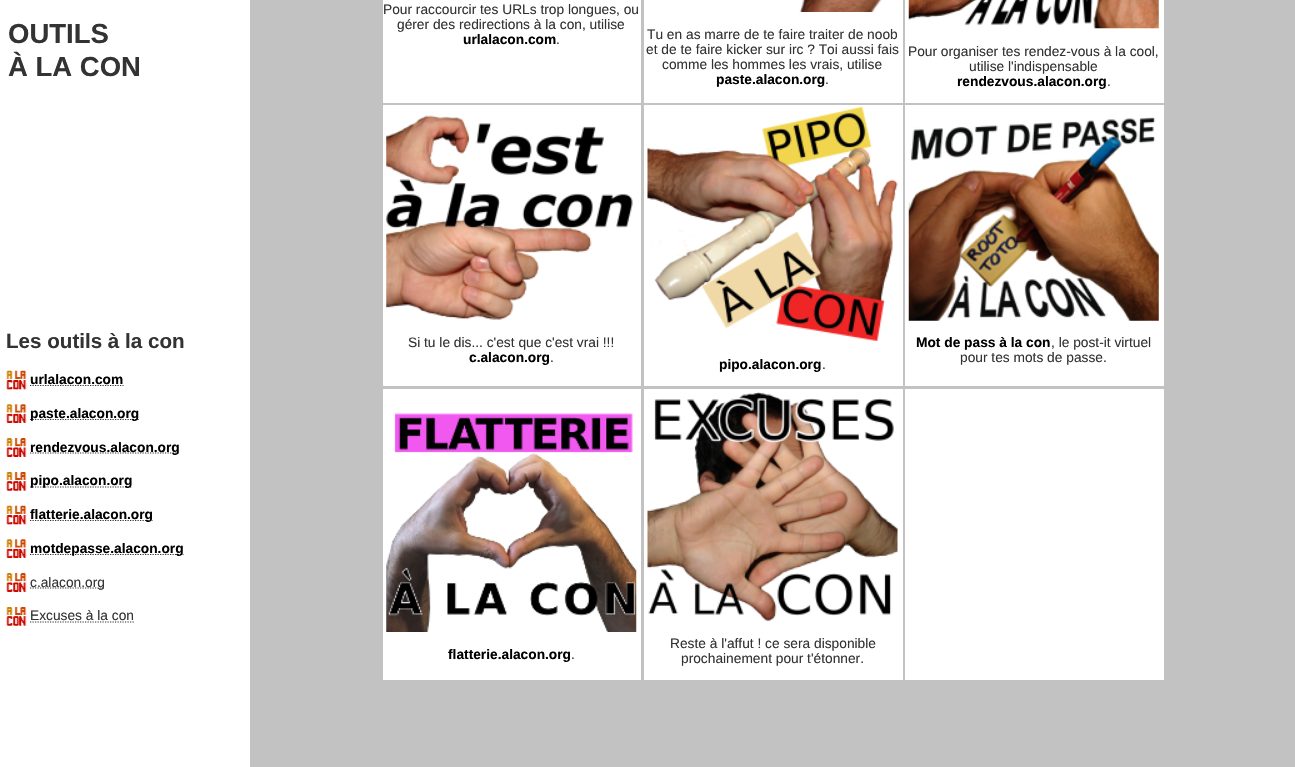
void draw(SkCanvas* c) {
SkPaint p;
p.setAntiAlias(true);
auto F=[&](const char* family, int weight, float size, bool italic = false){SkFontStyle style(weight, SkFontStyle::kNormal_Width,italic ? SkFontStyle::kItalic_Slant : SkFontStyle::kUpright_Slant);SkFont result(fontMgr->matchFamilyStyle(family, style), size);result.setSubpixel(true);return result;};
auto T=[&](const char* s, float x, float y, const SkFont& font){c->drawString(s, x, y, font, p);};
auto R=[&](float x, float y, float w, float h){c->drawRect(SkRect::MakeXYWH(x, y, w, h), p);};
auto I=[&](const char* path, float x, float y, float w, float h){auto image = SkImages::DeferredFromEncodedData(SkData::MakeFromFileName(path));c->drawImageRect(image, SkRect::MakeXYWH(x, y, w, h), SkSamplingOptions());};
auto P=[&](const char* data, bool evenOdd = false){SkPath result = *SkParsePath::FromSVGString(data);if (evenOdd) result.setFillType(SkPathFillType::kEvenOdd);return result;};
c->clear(0xffffffff);
auto f1 = F("Liberation Sans",700,27.5);
p.setColor(0xff333333);
T("OUTILS",8,43,f1);
T("À LA CON",8,76,f1);
auto f2 = F("Liberation Sans",700,20.6);
T("Les outils à la con",6,348,f2);
I("1.png",6,370,21,20);
p.setStroke(true);
p.setStrokeWidth(1.2);
p.setPathEffect(SkDashPathEffect::Make({{1.25f,1.25f}}, 0));
c->drawPath(P("M30 385.5h93.5"),p);
p.setPathEffect(nullptr);
auto f3 = F("Liberation Sans",700,13.75);
p.setStroke(false);
p.setColor(0xff000000);
T("urlalacon.com",30,384,f3);
I("2.png",6,404,21,19);
p.setStroke(true);
p.setColor(0xff333333);
p.setPathEffect(SkDashPathEffect::Make({{1.25f,1.25f}}, 0));
c->drawPath(P("M30 419.5h109.5"),p);
p.setPathEffect(nullptr);
p.setStroke(false);
p.setColor(0xff000000);
T("paste.alacon.org",30,418,f3);
I("3.png",6,438,21,19);
p.setStroke(true);
p.setColor(0xff333333);
p.setPathEffect(SkDashPathEffect::Make({{1.25f,1.25f}}, 0));
c->drawPath(P("M30 453h150"),p);
p.setPathEffect(nullptr);
p.setStroke(false);
p.setColor(0xff000000);
T("rendezvous.alacon.org",30,452,f3);
I("4.png",6,472,21,19);
p.setStroke(true);
p.setColor(0xff333333);
p.setPathEffect(SkDashPathEffect::Make({{1.25f,1.25f}}, 0));
c->drawPath(P("M30 487h102.5"),p);
p.setPathEffect(nullptr);
p.setStroke(false);
p.setColor(0xff000000);
T("pipo.alacon.org",30,485,f3);
I("1.png",6,505,21,20);
p.setStroke(true);
p.setColor(0xff333333);
p.setPathEffect(SkDashPathEffect::Make({{1.25f,1.25f}}, 0));
c->drawPath(P("M30 520.5h123"),p);
p.setPathEffect(nullptr);
p.setStroke(false);
p.setColor(0xff000000);
T("flatterie.alacon.org",30,519,f3);
I("2.png",6,539,21,19);
p.setStroke(true);
p.setColor(0xff333333);
p.setPathEffect(SkDashPathEffect::Make({{1.25f,1.25f}}, 0));
c->drawPath(P("M30 554.5h153.5"),p);
p.setPathEffect(nullptr);
p.setStroke(false);
p.setColor(0xff000000);
T("motdepasse.alacon.org",30,553,f3);
I("3.png",6,573,21,19);
p.setStroke(true);
p.setColor(0xff333333);
p.setPathEffect(SkDashPathEffect::Make({{1.25f,1.25f}}, 0));
c->drawPath(P("M30 588h75"),p);
p.setPathEffect(nullptr);
auto f4 = F("Liberation Sans",400,13.75);
p.setStroke(false);
T("c.alacon.org",30,587,f4);
I("4.png",6,607,21,19);
T("Excuses à la con",30,620,f4);
p.setStroke(true);
p.setPathEffect(SkDashPathEffect::Make({{1.25f,1.25f}}, 0));
c->drawPath(P("M30 622h104"),p);
p.setPathEffect(nullptr);
p.setStroke(false);
p.setColor(0xffc2c2c2);
R(250,0,1045,767);
p.setColor(0xffffffff);
R(383,0,258,103);
p.setColor(0xff333333);
T("Pour raccourcir tes URLs trop longues, ou",383,14,f4);
T("gérer des redirections à la con, utilise",397,29,f4);
p.setColor(0xff000000);
T("urlalacon.com",463,44,f3);
p.setColor(0xff333333);
T(".",556,44,f4);
p.setColor(0xffffffff);
R(644,0,259,103);
I("5.png",799,0,83,12);
p.setColor(0xff333333);
T("Tu en as marre de te faire traiter de noob",647,39,f4);
T("et de te faire kicker sur irc ? Toi aussi fais",646,54,f4);
T("comme les hommes les vrais, utilise",662,69,f4);
p.setColor(0xff000000);
T("paste.alacon.org",716,84,f3);
p.setColor(0xff333333);
T(".",825,84,f4);
p.setColor(0xffffffff);
R(905,0,259,103);
I("6.png",908,0,251,29);
p.setColor(0xff333333);
T("Pour organiser tes rendez-vous à la cool,",908,56,f4);
T("utilise l'indispensable",969,71,f4);
p.setColor(0xff000000);
T("rendezvous.alacon.org",957,86,f3);
p.setColor(0xff333333);
T(".",1107,86,f4);
p.setColor(0xffffffff);
R(383,105,258,281);
I("7.png",386,115,247,205);
p.setColor(0xff333333);
T("Si tu le dis... c'est que c'est vrai !!!",408,347,f4);
p.setColor(0xff000000);
T("c.alacon.org",469,362,f3);
p.setColor(0xff333333);
T(".",550,362,f4);
p.setColor(0xffffffff);
R(644,105,259,281);
I("8.png",647,106,251,235);
p.setColor(0xff000000);
T("pipo.alacon.org",719,369,f3);
p.setColor(0xff333333);
T(".",822,369,f4);
p.setColor(0xffffffff);
R(905,105,259,281);
I("9.png",908,117,251,204);
p.setColor(0xff000000);
T("Mot de pass à la con",916,347,f3);
p.setColor(0xff333333);
T(", le post-it virtuel",1051,347,f4);
T("pour tes mots de passe.",960,362,f4);
p.setColor(0xffffffff);
R(383,389,258,291);
I("10.png",386,413,251,219);
p.setColor(0xff000000);
T("flatterie.alacon.org",448,659,f3);
p.setColor(0xff333333);
T(".",571,659,f4);
p.setColor(0xffffffff);
R(644,389,259,291);
I("11.png",647,392,251,229);
p.setColor(0xff333333);
T("Reste à l'affut ! ce sera disponible",670,648,f4);
T("prochainement pour t'étonner.",681,663,f4);
p.setColor(0xffffffff);
R(905,389,259,291);
}
